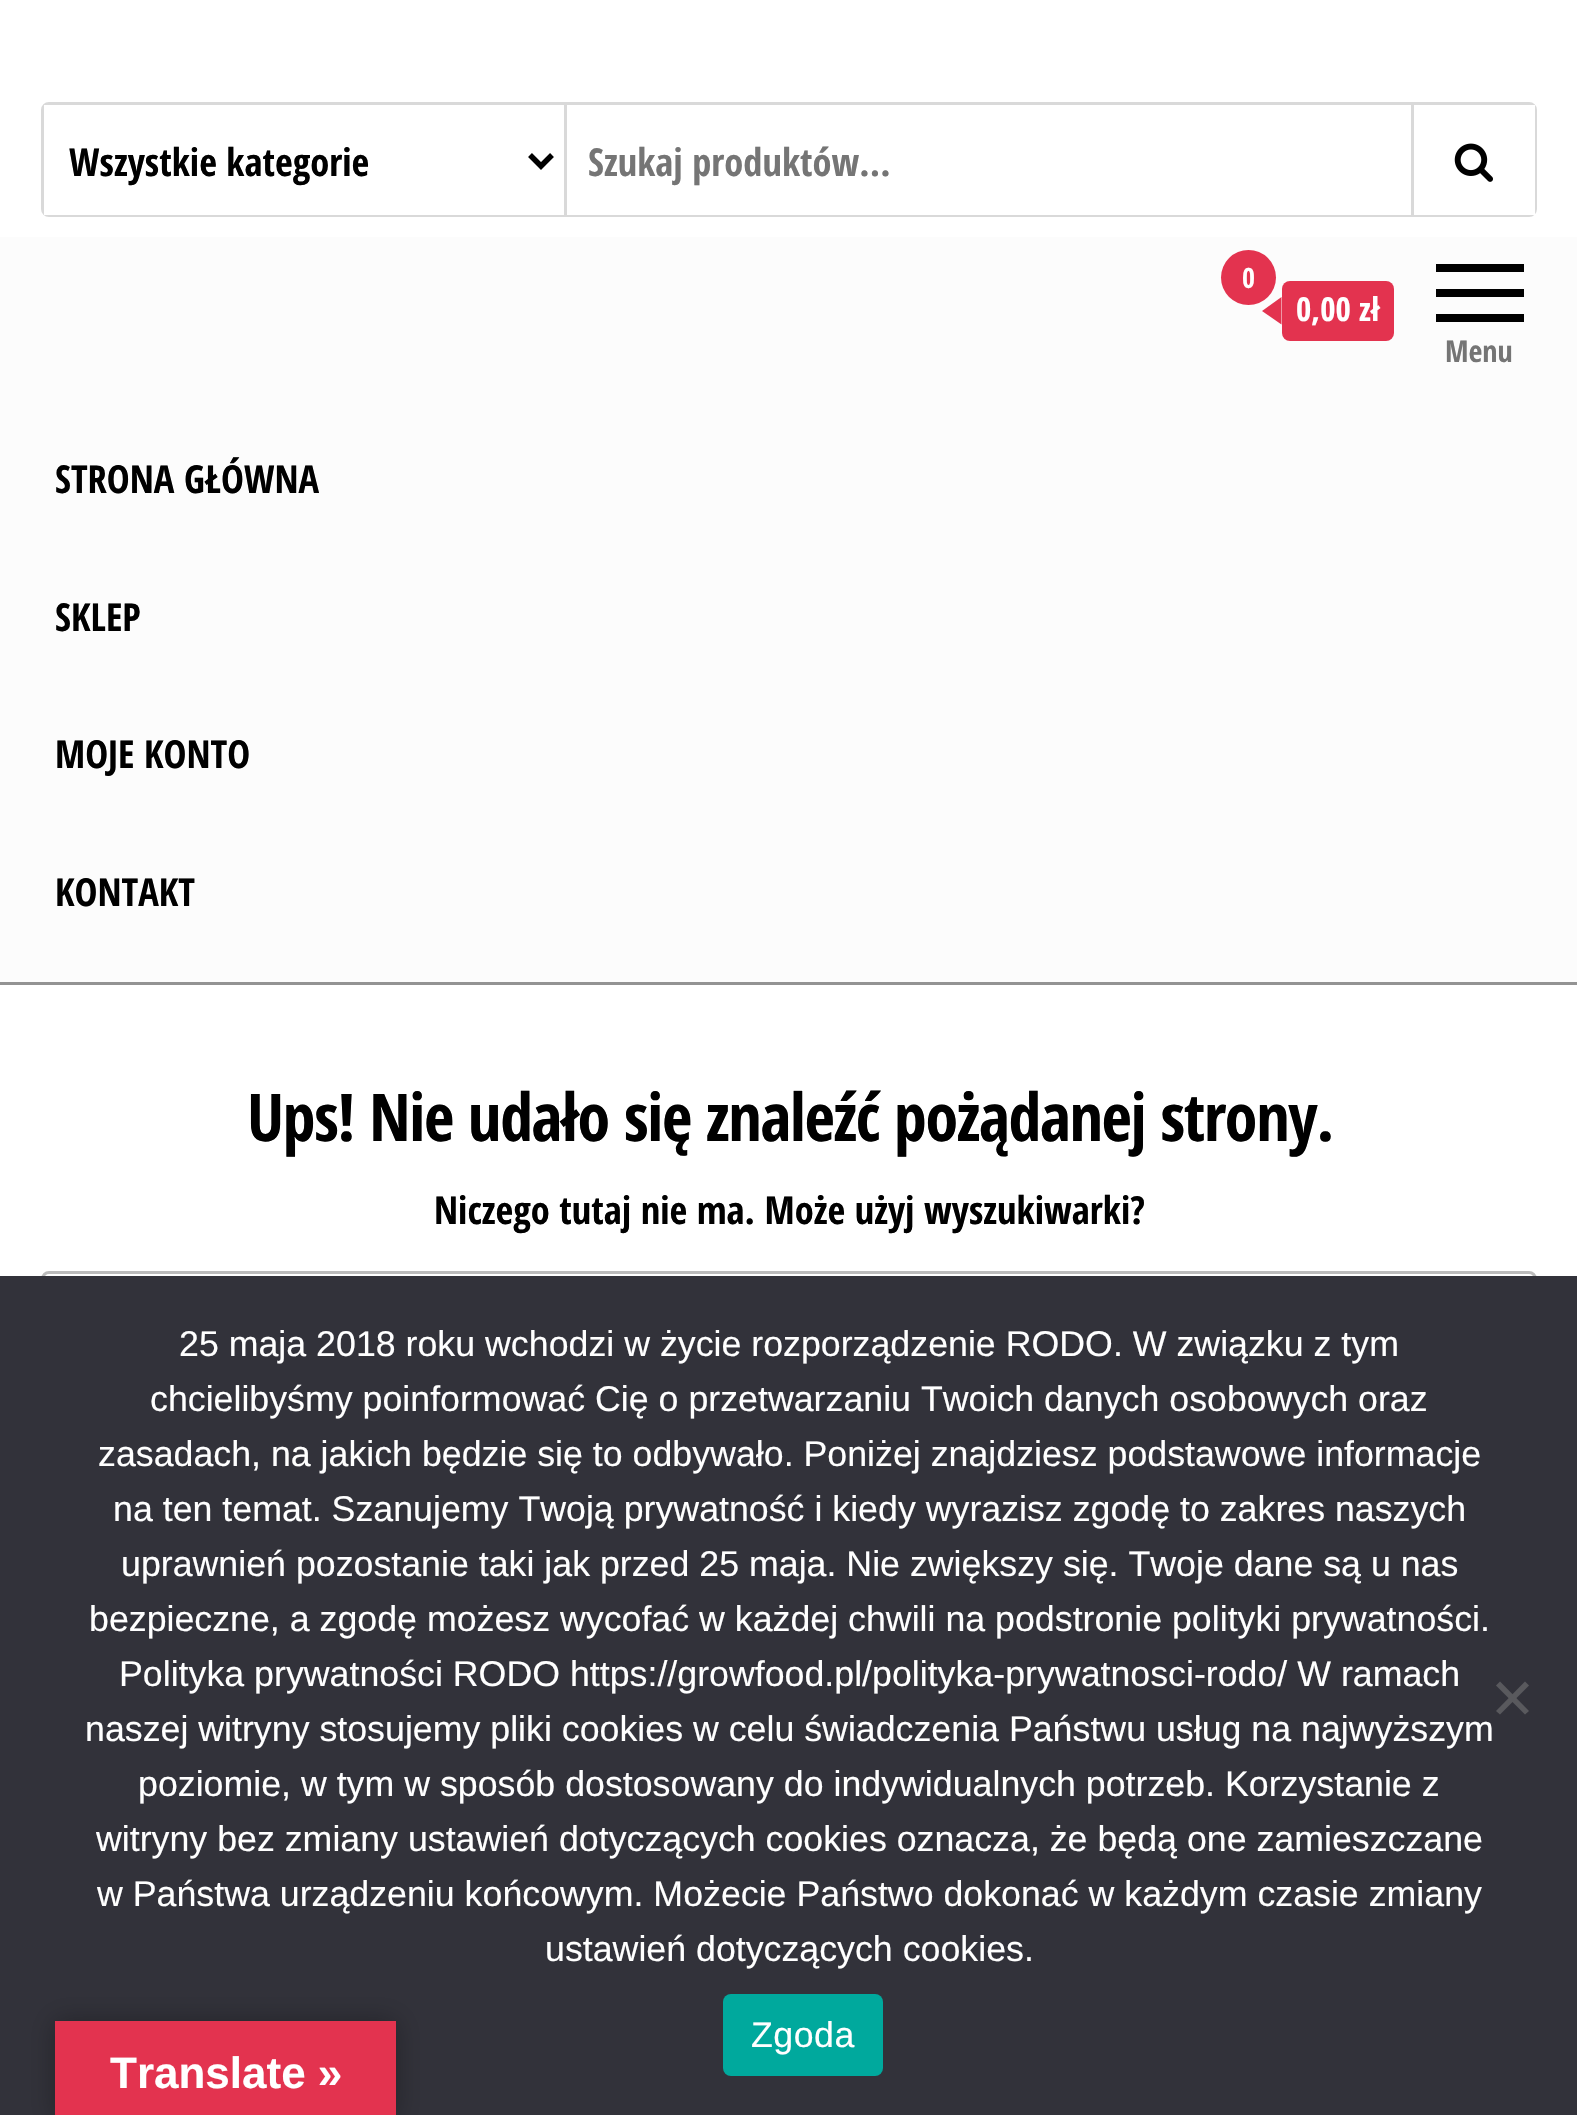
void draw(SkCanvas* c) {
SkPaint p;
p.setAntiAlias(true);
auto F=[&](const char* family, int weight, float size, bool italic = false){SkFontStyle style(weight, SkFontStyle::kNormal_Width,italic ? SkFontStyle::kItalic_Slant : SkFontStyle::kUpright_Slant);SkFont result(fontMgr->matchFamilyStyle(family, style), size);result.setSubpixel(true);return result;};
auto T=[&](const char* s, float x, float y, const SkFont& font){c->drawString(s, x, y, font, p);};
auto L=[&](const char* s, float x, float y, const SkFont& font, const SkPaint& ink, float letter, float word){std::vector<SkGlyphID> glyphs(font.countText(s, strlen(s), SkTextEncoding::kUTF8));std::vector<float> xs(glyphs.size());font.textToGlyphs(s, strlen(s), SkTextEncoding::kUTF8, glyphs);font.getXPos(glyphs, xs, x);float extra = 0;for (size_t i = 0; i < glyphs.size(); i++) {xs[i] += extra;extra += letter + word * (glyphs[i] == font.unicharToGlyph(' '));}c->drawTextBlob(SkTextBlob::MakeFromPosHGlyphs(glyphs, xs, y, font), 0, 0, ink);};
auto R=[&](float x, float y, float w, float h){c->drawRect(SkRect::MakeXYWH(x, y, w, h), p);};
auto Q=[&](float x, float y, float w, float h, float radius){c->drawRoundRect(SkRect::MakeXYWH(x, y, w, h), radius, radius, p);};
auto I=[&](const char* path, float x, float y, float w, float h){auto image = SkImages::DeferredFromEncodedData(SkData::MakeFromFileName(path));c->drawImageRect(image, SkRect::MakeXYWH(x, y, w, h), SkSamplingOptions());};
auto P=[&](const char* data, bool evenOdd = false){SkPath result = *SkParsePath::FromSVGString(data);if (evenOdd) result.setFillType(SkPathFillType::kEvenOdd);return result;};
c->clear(0xffffffff);
p.setStroke(true);
p.setStrokeWidth(3);
p.setColor(0xffd9d9d9);
c->drawRoundRect(SkRect::MakeXYWH(42.5,103.5,1493,112),6.5,6.5,p);
p.setStroke(false);
p.setColor(0xffffffff);
R(44,105,520,110);
p.setColor(0xffd9d9d9);
R(564,105,3,110);
p.setStroke(true);
p.setStrokeWidth(5.5);
p.setColor(0xff000000);
c->drawPath(P("M530 155l11 11l11-11"),p);
auto f1 = F("Open Sans Condensed",700,38.5);
p.setStroke(false);
T("Wszystkie kategorie",69,176,f1);
p.setColor(0xffffffff);
R(567,105,968,110);
c->save();
c->clipRect(SkRect::MakeXYWH(589,135,924,52));
p.setColor(0xff757575);
T("Szukaj produktów...",588,176,f1);
c->restore();
p.setColor(0xffd9d9d9);
R(1411,105,3,110);
I("1.png",1454,143,39,39);
p.setColor(0xfffcfcfc);
R(0,237,1577,745);
p.setColor(0xff939393);
R(0,982,1577,3);
p.setColor(0xffe3334f);
c->drawCircle(1248.5,277.5,27.5,p);
auto f2 = F("Open Sans Condensed",700,28);
p.setColor(0xffffffff);
T("0",1242,288,f2);
p.setColor(0xffe3334f);
Q(1282,281,112,60,8);
c->drawPath(P("M1281.5 297v27.5l-19.5-13.5z"),p);
auto f3 = F("Open Sans Condensed",700,33);
p.setColor(0xffffffff);
T("0,00 zł",1296,321,f3);
p.setColor(0xff000000);
R(1436,264,88,8);
R(1436,289,88,8);
R(1436,314,88,8);
auto f4 = F("Open Sans Condensed",700,30);
p.setColor(0xff757575);
T("Menu",1445,362,f4);
p.setColor(0xff000000);
T("STRONA GŁÓWNA",55,493,f1);
T("SKLEP",55,631,f1);
T("MOJE KONTO",55,768,f1);
T("KONTAKT",55,906,f1);
auto f5 = F("Open Sans Condensed",700,66);
L("Ups! Nie udało się znaleźć pożądanej strony.",247,1141,f5,p,-1.3,0);
T("Niczego tutaj nie ma. Może użyj wyszukiwarki?",434,1224,f1);
p.setStroke(true);
p.setStrokeWidth(3);
p.setColor(0xffbbbbbb);
c->drawRoundRect(SkRect::MakeXYWH(42.5,1272.5,1493,107),6.5,6.5,p);
p.setStroke(false);
p.setColor(0xff32323a);
R(0,1276,1577,839);
auto f6 = F("Liberation Sans",400,35.75);
p.setColor(0xffffffff);
T("25 maja 2018 roku wchodzi w życie rozporządzenie RODO. W związku z tym",179,1356,f6);
T("chcielibyśmy poinformować Cię o przetwarzaniu Twoich danych osobowych oraz",150,1411,f6);
T("zasadach, na jakich będzie się to odbywało. Poniżej znajdziesz podstawowe informacje",98,1466,f6);
T("na ten temat. Szanujemy Twoją prywatność i kiedy wyrazisz zgodę to zakres naszych",113,1521,f6);
T("uprawnień pozostanie taki jak przed 25 maja. Nie zwiększy się. Twoje dane są u nas",121,1576,f6);
T("bezpieczne, a zgodę możesz wycofać w każdej chwili na podstronie polityki prywatności.",89,1631,f6);
T("Polityka prywatności RODO https://growfood.pl/polityka-prywatnosci-rodo/ W ramach",119,1686,f6);
T("naszej witryny stosujemy pliki cookies w celu świadczenia Państwu usług na najwyższym",85,1741,f6);
T("poziomie, w tym w sposób dostosowany do indywidualnych potrzeb. Korzystanie z",138,1796,f6);
T("witryny bez zmiany ustawień dotyczących cookies oznacza, że będą one zamieszczane",96,1851,f6);
T("w Państwa urządzeniu końcowym. Możecie Państwo dokonać w każdym czasie zmiany",97,1906,f6);
T("ustawień dotyczących cookies.",545,1961,f6);
p.setColor(0xff59595d);
c->drawPath(P("M1525 1681.5l4 4l-29 29l-4-3.5z"),p);
c->drawPath(P("M1496 1685.5l4-4l29 29.5l-4 3.5z"),p);
p.setColor(0xff00a99d);
Q(723,1994,160,82,8);
p.setColor(0xffffffff);
L("Zgoda",751,2047,f6,p,.5,0);
p.setColor(0x4d000000);
p.setMaskFilter(SkMaskFilter::MakeBlur(kNormal_SkBlurStyle, 12.5));
c->drawRect(SkRect::MakeXYWH(55,2021,341,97),p);
p.setMaskFilter(nullptr);
p.setColor(0xffe3334f);
R(55,2021,341,94);
auto f7 = F("Liberation Sans",700,44);
p.setColor(0xffffffff);
T("Translate »",110,2088,f7);
}
